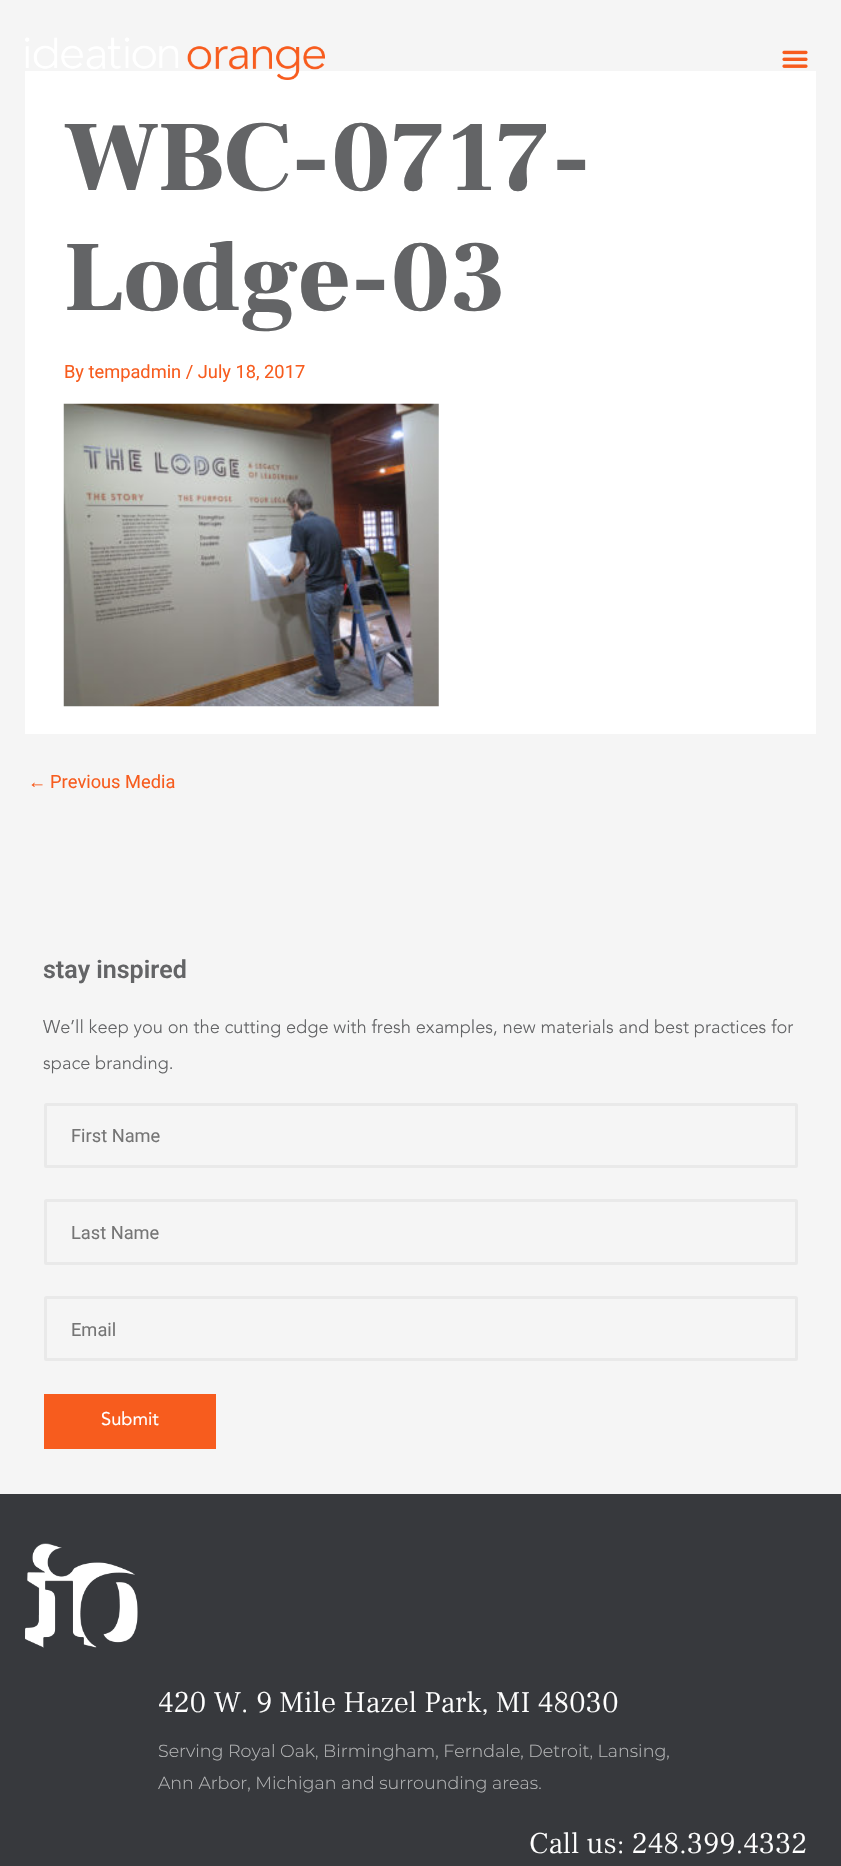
void draw(SkCanvas* c) {
SkPaint p;
p.setAntiAlias(true);
auto F=[&](const char* family, int weight, float size, bool italic = false){SkFontStyle style(weight, SkFontStyle::kNormal_Width,italic ? SkFontStyle::kItalic_Slant : SkFontStyle::kUpright_Slant);SkFont result(fontMgr->matchFamilyStyle(family, style), size);result.setSubpixel(true);return result;};
auto T=[&](const char* s, float x, float y, const SkFont& font){c->drawString(s, x, y, font, p);};
auto R=[&](float x, float y, float w, float h){c->drawRect(SkRect::MakeXYWH(x, y, w, h), p);};
auto I=[&](const char* path, float x, float y, float w, float h){auto image = SkImages::DeferredFromEncodedData(SkData::MakeFromFileName(path));c->drawImageRect(image, SkRect::MakeXYWH(x, y, w, h), SkSamplingOptions());};
c->clear(0xfff5f5f5);
p.setColor(0xffffffff);
R(25,71,791,663);
I("1.png",25,37,300,43);
I("2.png",782,50,26,18);
auto f1 = F("Frank Ruhl Libre",900,100);
p.setColor(0xff636466);
T("WBC-0717-",64,190,f1);
T("Lodge-03",64,310,f1);
auto f2 = F("Roboto",400,18.25);
p.setColor(0xfff75c1e);
T("By tempadmin / July 18, 2017",64,378,f2);
I("3.png",63,403,376,304);
auto f3 = F("Liberation Sans",400,18.25);
T("←",28,788,f3);
T("Previous Media",50,788,f2);
auto f4 = F("Roboto",600,25);
p.setColor(0xff636466);
T("stay inspired",43,978,f4);
auto f5 = F("Avenir",300,18.25);
T("We’ll keep you on the cutting edge with fresh examples, new materials and best practices for",43,1033,f5);
T("space branding.",43,1069,f5);
p.setStroke(true);
p.setStrokeWidth(3);
p.setColor(0xffe9e9e9);
c->drawRoundRect(SkRect::MakeXYWH(45.5,1104.5,751,62),1,1,p);
p.setStroke(false);
p.setColor(0xff757575);
T("First Name",71,1142,f2);
p.setStroke(true);
p.setColor(0xffe9e9e9);
c->drawRoundRect(SkRect::MakeXYWH(45.5,1200.5,751,63),1,1,p);
p.setStroke(false);
p.setColor(0xff757575);
T("Last Name",71,1239,f2);
p.setStroke(true);
p.setColor(0xffe9e9e9);
c->drawRoundRect(SkRect::MakeXYWH(45.5,1297.5,751,62),1,1,p);
p.setStroke(false);
p.setColor(0xff757575);
T("Email",71,1336,f2);
p.setColor(0xfff75c1e);
R(44,1394,172,55);
auto f6 = F("Avenir",400,18.25);
p.setColor(0xffffffff);
T("Submit",101,1425,f6);
p.setColor(0xff37393d);
R(0,1494,841,372);
I("4.png",25,1543,113,105);
auto f7 = F("Frank Ruhl Libre",300,30);
p.setColor(0xffffffff);
T("420 W. 9 Mile Hazel Park, MI 48030",158,1712,f7);
auto f8 = F("Montserrat",300,17.5);
p.setColor(0xffb5b6b7);
T("Serving Royal Oak, Birmingham, Ferndale, Detroit, Lansing,",158,1757,f8);
T("Ann Arbor, Michigan and surrounding areas.",158,1789,f8);
p.setColor(0xffffffff);
T("Call us: 248.399.4332",529,1853,f7);
}
